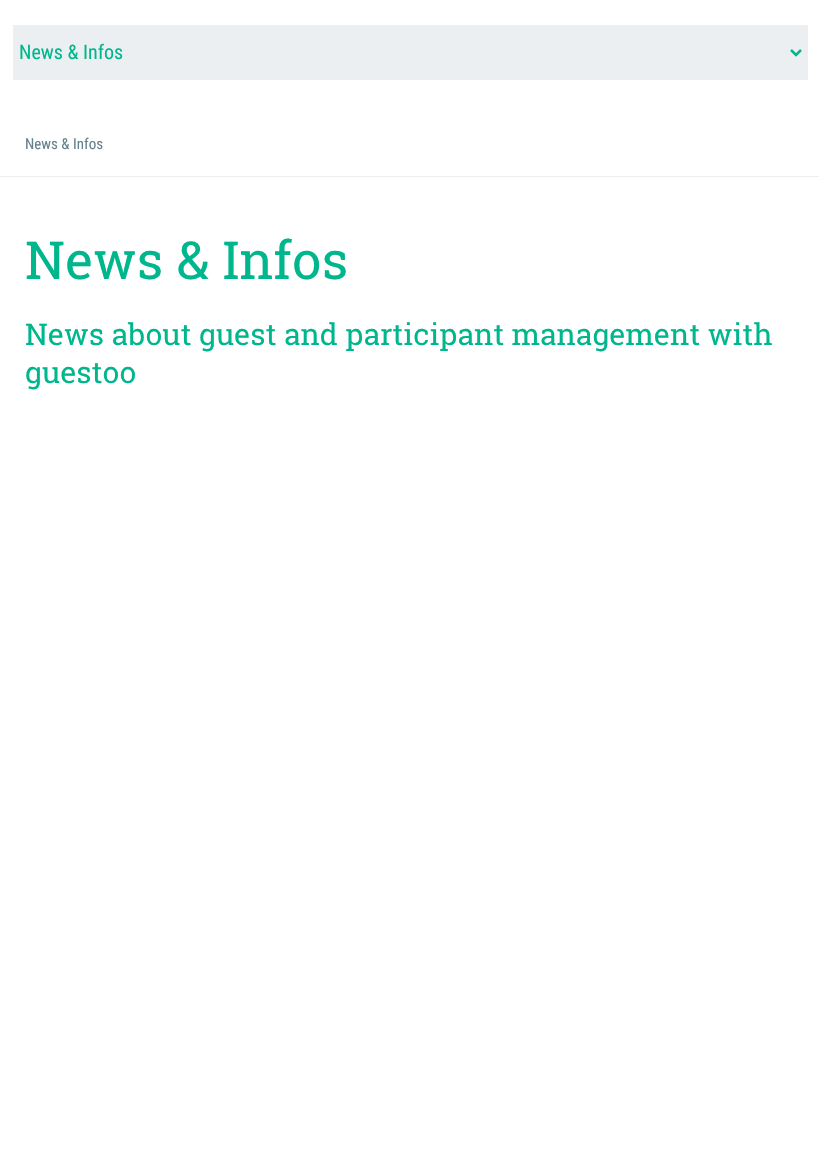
void draw(SkCanvas* c) {
SkPaint p;
p.setAntiAlias(true);
auto F=[&](const char* family, int weight, float size, bool italic = false){SkFontStyle style(weight, SkFontStyle::kNormal_Width,italic ? SkFontStyle::kItalic_Slant : SkFontStyle::kUpright_Slant);SkFont result(fontMgr->matchFamilyStyle(family, style), size);result.setSubpixel(true);return result;};
auto T=[&](const char* s, float x, float y, const SkFont& font){c->drawString(s, x, y, font, p);};
auto R=[&](float x, float y, float w, float h){c->drawRect(SkRect::MakeXYWH(x, y, w, h), p);};
auto P=[&](const char* data, bool evenOdd = false){SkPath result = *SkParsePath::FromSVGString(data);if (evenOdd) result.setFillType(SkPathFillType::kEvenOdd);return result;};
c->clear(0xffffffff);
p.setColor(0xffeceff1);
R(13,25,795,55);
p.setStroke(true);
p.setStrokeWidth(2.5);
p.setColor(0xff00b68d);
c->drawPath(P("M791 50l5 5l5-5"),p);
auto f1 = F("Roboto Condensed",400,20);
p.setStroke(false);
T("News & Infos",19,59,f1);
p.setColor(0xffeceff1);
R(0,176,819,1);
auto f2 = F("Roboto Condensed",400,15);
p.setColor(0xff667f8c);
T("News & Infos",25,149,f2);
auto f3 = F("Roboto Slab",400,52.5);
p.setColor(0xff00b68d);
T("News & Infos",25,279,f3);
auto f4 = F("Roboto Slab",400,30);
T("News about guest and participant management with",25,345,f4);
T("guestoo",25,383,f4);
}
